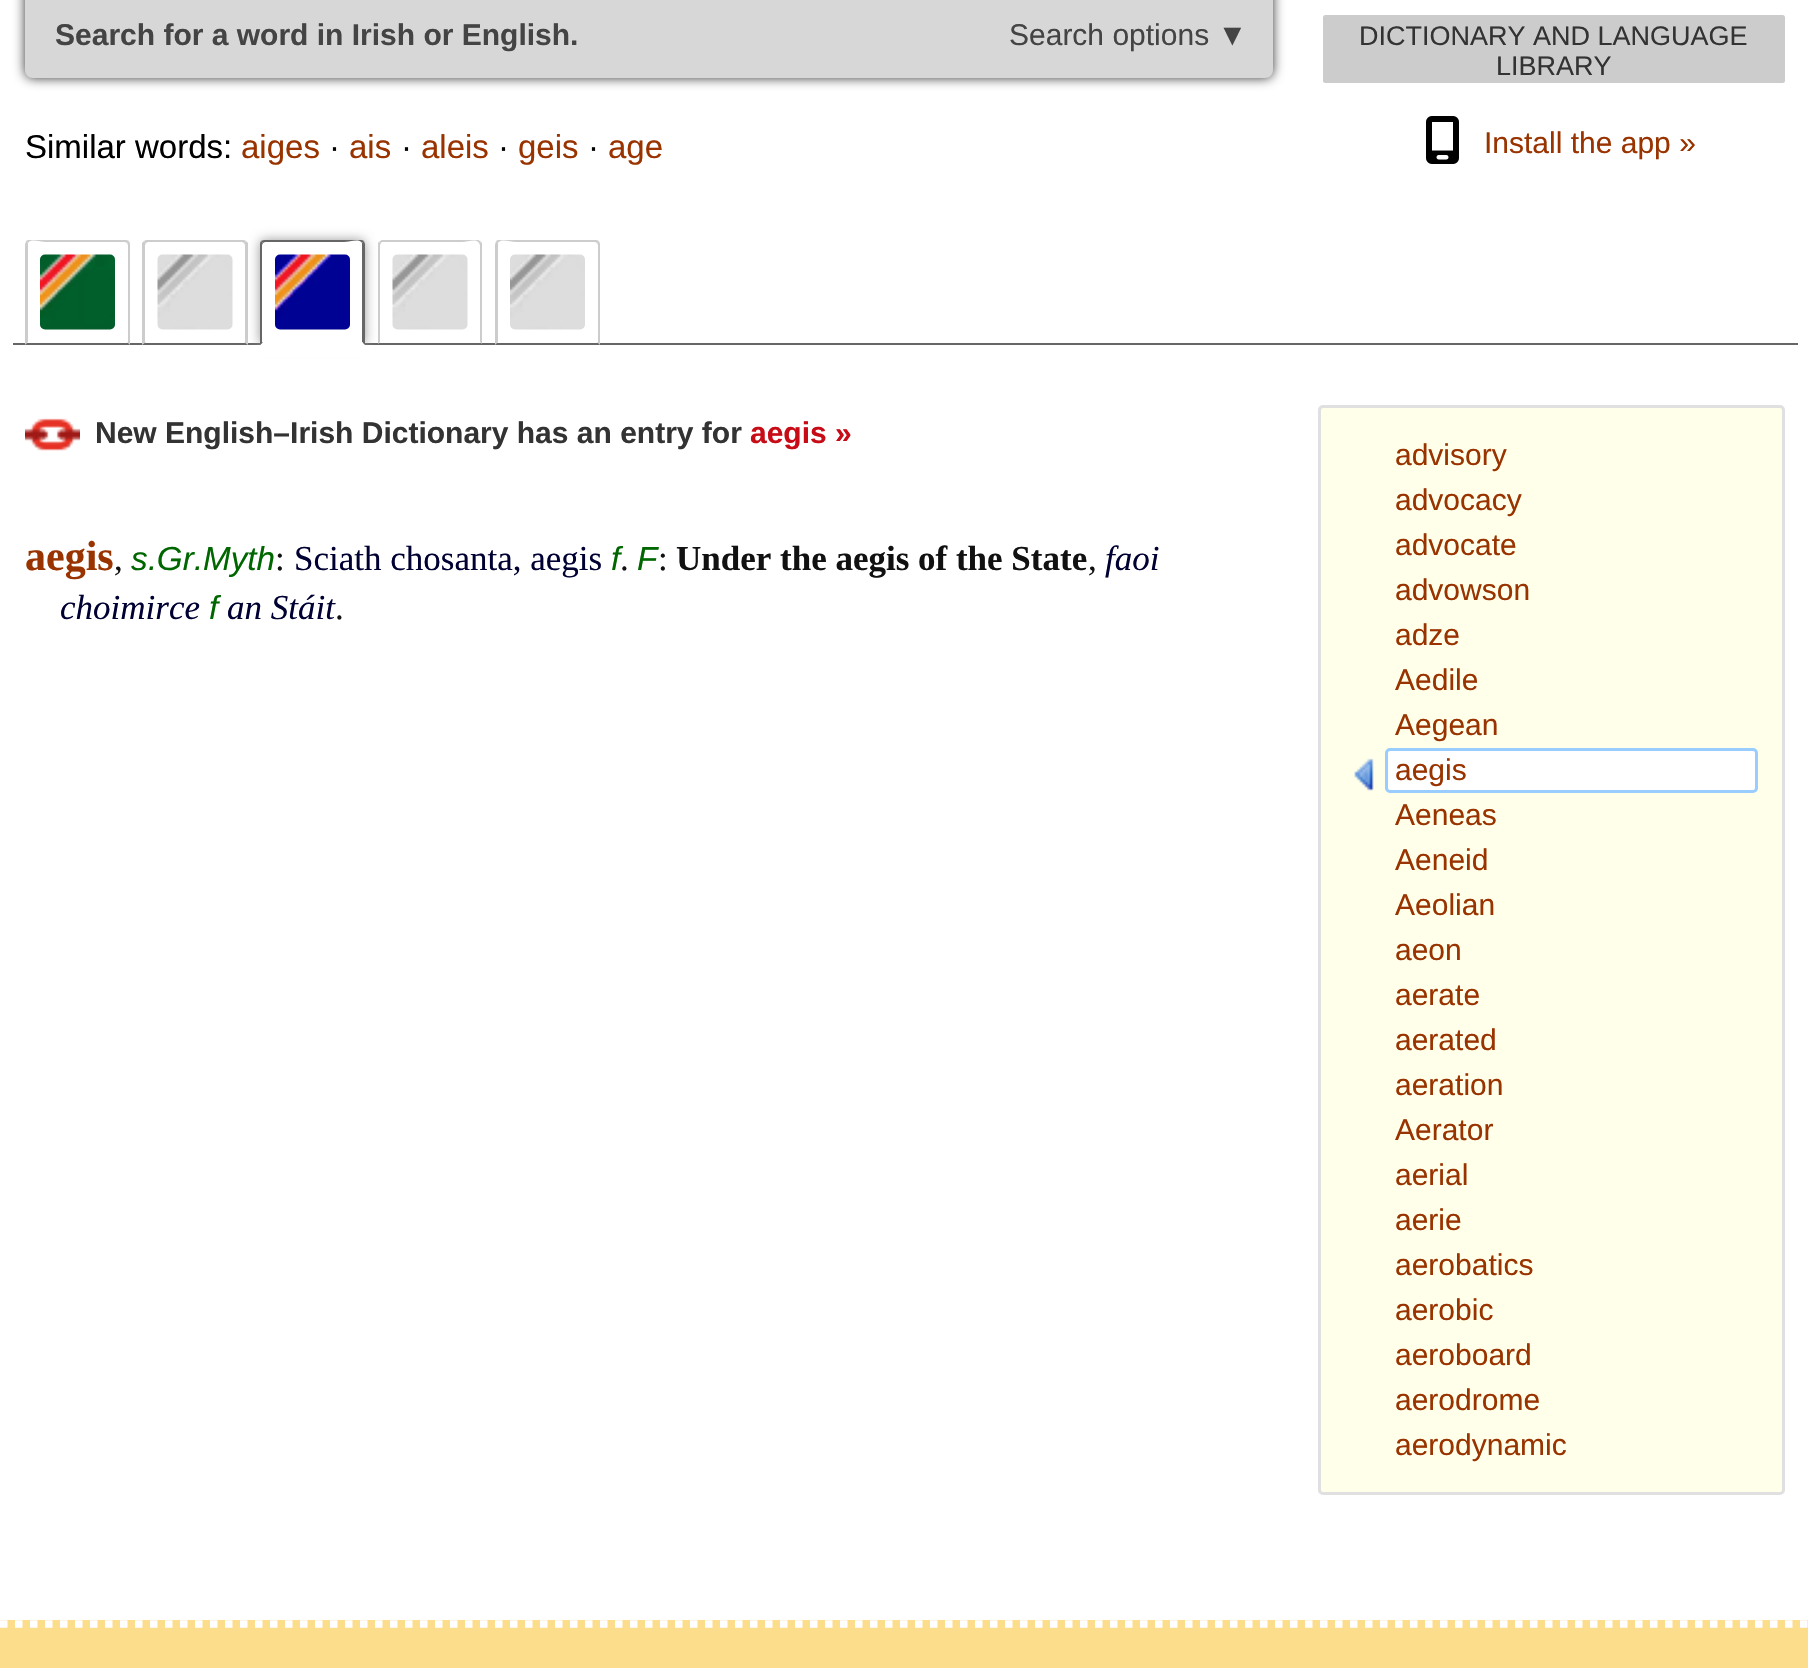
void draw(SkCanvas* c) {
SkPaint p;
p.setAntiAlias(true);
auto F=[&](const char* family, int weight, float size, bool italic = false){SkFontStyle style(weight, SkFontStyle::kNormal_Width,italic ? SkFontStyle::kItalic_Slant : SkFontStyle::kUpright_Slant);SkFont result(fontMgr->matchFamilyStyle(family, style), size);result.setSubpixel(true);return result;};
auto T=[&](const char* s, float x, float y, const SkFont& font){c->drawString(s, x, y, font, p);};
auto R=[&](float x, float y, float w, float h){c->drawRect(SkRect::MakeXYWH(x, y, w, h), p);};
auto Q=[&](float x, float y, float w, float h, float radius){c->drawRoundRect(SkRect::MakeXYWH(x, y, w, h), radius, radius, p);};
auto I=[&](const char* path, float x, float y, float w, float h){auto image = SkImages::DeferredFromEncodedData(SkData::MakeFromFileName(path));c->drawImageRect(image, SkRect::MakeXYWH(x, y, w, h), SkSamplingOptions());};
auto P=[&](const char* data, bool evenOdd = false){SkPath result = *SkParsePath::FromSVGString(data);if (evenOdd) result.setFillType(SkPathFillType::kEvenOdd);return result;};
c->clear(0xffffffff);
p.setColor(0xff333333);
p.setMaskFilter(SkMaskFilter::MakeBlur(kNormal_SkBlurStyle, 6));
c->drawRoundRect(SkRect::MakeXYWH(25,-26,1248,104),8,8,p);
p.setMaskFilter(nullptr);
p.setColor(0xffd7d7d7);
c->drawPath(P("M25-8h1248v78c0 4.5-3.5 8-8 8h-1232c-4.5 0-8-3.5-8-8z"),p);
auto f1 = F("Liberation Sans",700,30);
p.setColor(0xff444444);
T("Search for a word in Irish or English.",55,45,f1);
auto f2 = F("Liberation Sans",400,30);
T("Search options ▼",1009,45,f2);
p.setColor(0xffcccccc);
Q(1323,15,462,68,2.5);
auto f3 = F("Liberation Sans",400,27);
p.setColor(0xff333333);
T("DICTIONARY AND LANGUAGE",1359,45,f3);
T("LIBRARY",1496,75,f3);
I("1.png",1426,116,33,48);
p.setColor(0xff993300);
T("Install the app »",1484,153,f2);
auto f4 = F("Liberation Sans",400,33);
p.setColor(0xff000000);
T("Similar words:",25,158,f4);
p.setColor(0xff993300);
T("aiges",241,158,f4);
p.setColor(0xff000000);
T("·",329,158,f4);
p.setColor(0xff993300);
T("ais",349,158,f4);
p.setColor(0xff000000);
T("·",401,158,f4);
p.setColor(0xff993300);
T("aleis",421,158,f4);
p.setColor(0xff000000);
T("·",498,158,f4);
p.setColor(0xff993300);
T("geis",518,158,f4);
p.setColor(0xff000000);
T("·",588,158,f4);
p.setColor(0xff993300);
T("age",608,158,f4);
p.setColor(0xff666666);
R(13,343,1785,2);
p.setColor(0xffcccccc);
c->drawPath(P("M30 240c-2 0-3 0-4 1l2 2c3-5 12-1 18-1h79l2 1l2-2c-1-1-3-1-4-1z"),p);
c->drawPath(P("M130 345v-101l-1-3l-2 2l1 2v97h-1z"),p);
c->drawPath(P("M25 345l3-3v-97v-2l-2-2c0 1-1 3-1 4z"),p);
I("2.png",39,254,76,76);
c->drawPath(P("M148 240c-2 0-3 0-4 1l2 2l2-1h94l2 1l2-2c-1-1-2-1-4-1z"),p);
c->drawPath(P("M248 243v102l-4-3h1v-97l-1-2l2-2z"),p);
c->drawPath(P("M142 345v-102l2-2l2 2l-1 2v97h1z"),p);
I("3.png",157,254,76,76);
c->drawPath(P("M382 240c-1 0-2 1-3 2l2 1l1-1h80c6 0 14-4 17 1l2-1c-1-1-2-2-3-2z"),p);
c->drawPath(P("M379 242c-1 0-1 2-1 3v99l2-2v-97l1-2z"),p);
c->save();
c->clipPath(P("M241 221h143v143h-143zm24 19h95c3 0 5 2 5 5v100h-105v-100c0-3 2-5 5-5z",true),true);
p.setColor(0xff999999);
p.setMaskFilter(SkMaskFilter::MakeBlur(kNormal_SkBlurStyle, 6));
c->drawRoundRect(SkRect::MakeXYWH(260,240,105,105),5,5,p);
p.setMaskFilter(nullptr);
c->restore();
p.setColor(0xff666666);
c->drawPath(P("M265 240c-1 0-3 0-4 1l2 2l2-1h79c6 0 15-4 18 1l2-2c-1-1-2-1-4-1z"),p);
c->drawPath(P("M365 345v-101l-1-3l-2 2v2v97z"),p);
p.setColor(0xffffffff);
c->drawPath(P("M365 345l-3-3h-99l-3 3z"),p);
p.setColor(0xff666666);
c->drawPath(P("M260 345l3-3h-1v-97l1-2l-2-2c-1 1-1 3-1 4z"),p);
I("4.png",274,254,76,76);
p.setColor(0xffcccccc);
c->drawPath(P("M481 242c1 0 1 2 1 3v99l-2-2v-97l-1-2z"),p);
I("5.png",392,254,76,76);
c->drawPath(P("M500 240c-2 0-3 0-4 1l2 2c3-5 12-1 18-1h79l2 1l2-2c-1-1-3-1-4-1z"),p);
c->drawPath(P("M600 345v-101l-1-3l-2 2l1 2v97h-1z"),p);
c->drawPath(P("M495 345l3-3v-97v-2l-2-2c0 1-1 3-1 4z"),p);
I("6.png",510,254,75,76);
p.setColor(0xffffffff);
R(251,345,123,12);
I("7.png",25,418,55,33);
p.setColor(0xff333333);
T("New English–Irish Dictionary has an entry for",95,443,f1);
p.setColor(0xffc70c17);
T("aegis »",750,443,f1);
auto f5 = F("Liberation Serif",700,42);
p.setColor(0xff993300);
T("aegis",25,570,f5);
auto f6 = F("Liberation Serif",400,35);
p.setColor(0xff111111);
T(",",114,570,f6);
auto f7 = F("Liberation Sans",400,33.25,true);
p.setColor(0xff006600);
T(".",148,570,f7);
T(".",194,570,f7);
T("s Gr Myth",131,570,f7);
p.setColor(0xff111111);
T(":",275,570,f6);
p.setColor(0xff000033);
T("Sciath chosanta, aegis",294,570,f6);
p.setColor(0xff111111);
T(".",620,570,f6);
p.setColor(0xff006600);
T("f",611,570,f7);
T("F",637,570,f7);
p.setColor(0xff111111);
T(":",658,570,f6);
auto f8 = F("Liberation Serif",700,35);
T("Under the aegis of the State",676,570,f8);
auto f9 = F("Liberation Serif",400,35,true);
p.setColor(0xff000033);
T("faoi",1105,570,f9);
p.setColor(0xff111111);
T(",",1088,570,f6);
p.setColor(0xff000033);
T("choimirce",60,619,f9);
p.setColor(0xff006600);
T("f",209,619,f7);
p.setColor(0xff000033);
T("an Stáit",227,619,f9);
p.setColor(0xff111111);
T(".",335,619,f6);
p.setColor(0xffffffea);
c->drawRoundRect(SkRect::MakeXYWH(1319.5,406.5,464,1087),3.5,3.5,p);
p.setStroke(true);
p.setStrokeWidth(3);
p.setColor(0xffe0e0e0);
c->drawRoundRect(SkRect::MakeXYWH(1319.5,406.5,464,1087),3.5,3.5,p);
p.setStroke(false);
p.setColor(0xff993300);
T("advisory",1395,465,f2);
T("advocacy",1395,510,f2);
T("advocate",1395,555,f2);
T("advowson",1395,600,f2);
T("adze",1395,645,f2);
T("Aedile",1395,690,f2);
T("Aegean",1395,735,f2);
I("8.png",1354,758,20,33);
p.setColor(0xffffffff);
c->drawRoundRect(SkRect::MakeXYWH(1386.5,749.5,370,42),3.5,3.5,p);
p.setStroke(true);
p.setColor(0xff99ccff);
c->drawRoundRect(SkRect::MakeXYWH(1386.5,749.5,370,42),3.5,3.5,p);
p.setStroke(false);
p.setColor(0xff993300);
T("aegis",1395,780,f2);
T("Aeneas",1395,825,f2);
T("Aeneid",1395,870,f2);
T("Aeolian",1395,915,f2);
T("aeon",1395,960,f2);
T("aerate",1395,1005,f2);
T("aerated",1395,1050,f2);
T("aeration",1395,1095,f2);
T("Aerator",1395,1140,f2);
T("aerial",1395,1185,f2);
T("aerie",1395,1230,f2);
T("aerobatics",1395,1275,f2);
T("aerobic",1395,1320,f2);
T("aeroboard",1395,1365,f2);
T("aerodrome",1395,1410,f2);
T("aerodynamic",1395,1455,f2);
p.setColor(0xfffcdd8b);
R(0,1620,1808,48);
p.setStroke(true);
p.setStrokeWidth(7.5);
p.setColor(0xffffffff);
p.setPathEffect(SkDashPathEffect::Make({{7.5f,7.5f}}, 0));
c->drawPath(P("M0 1624h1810"),p);
p.setPathEffect(nullptr);
}
